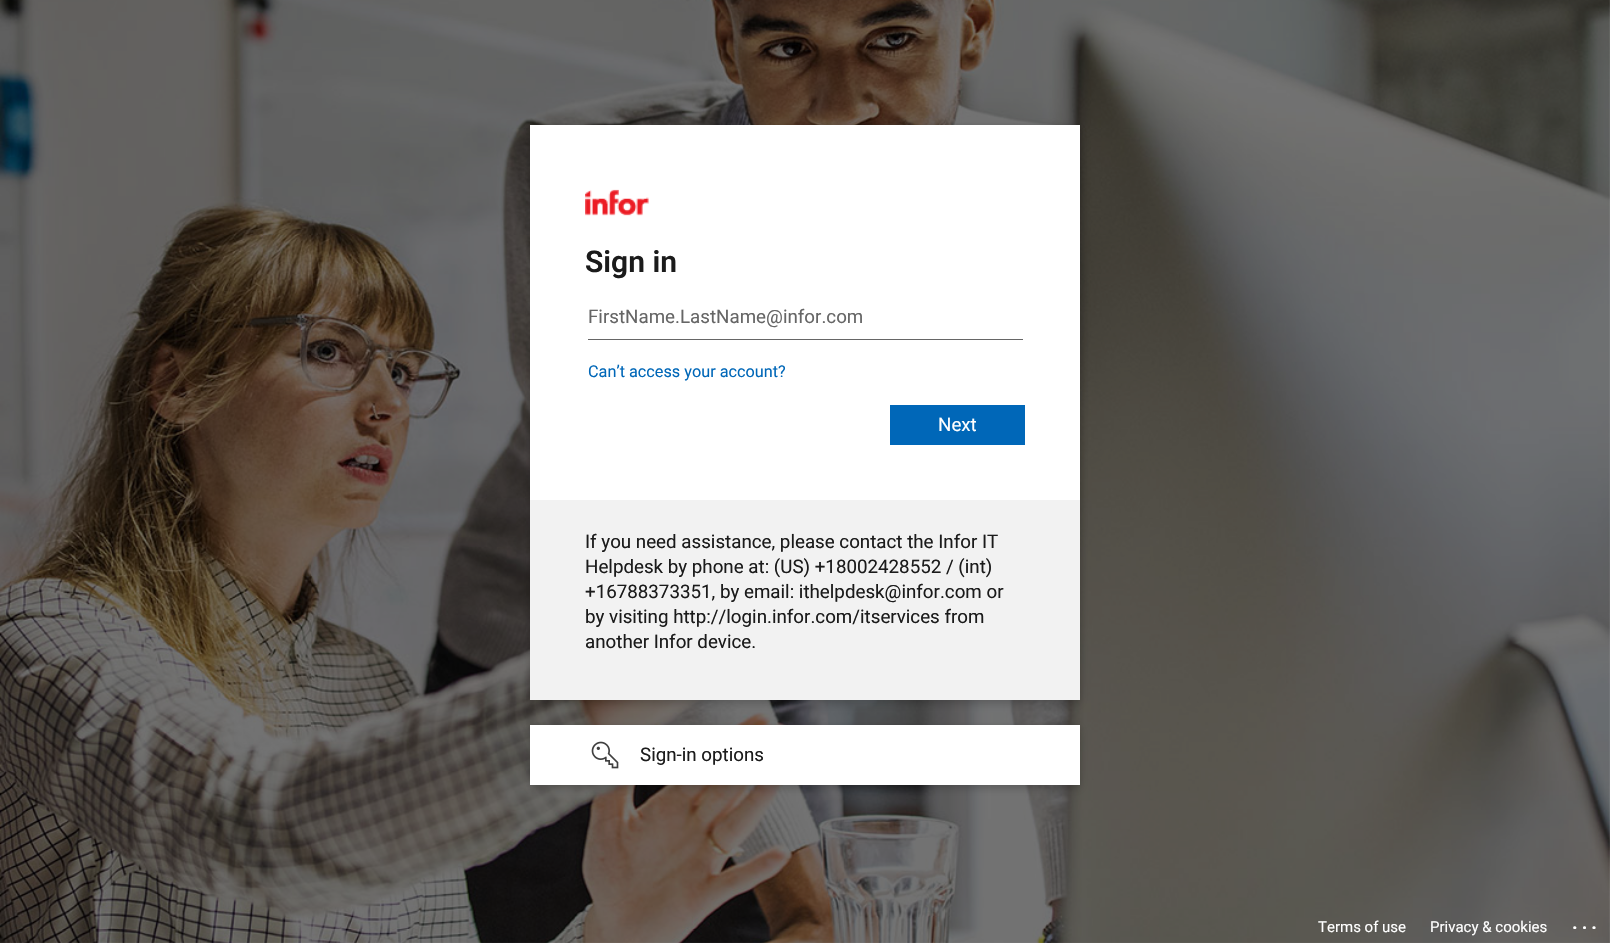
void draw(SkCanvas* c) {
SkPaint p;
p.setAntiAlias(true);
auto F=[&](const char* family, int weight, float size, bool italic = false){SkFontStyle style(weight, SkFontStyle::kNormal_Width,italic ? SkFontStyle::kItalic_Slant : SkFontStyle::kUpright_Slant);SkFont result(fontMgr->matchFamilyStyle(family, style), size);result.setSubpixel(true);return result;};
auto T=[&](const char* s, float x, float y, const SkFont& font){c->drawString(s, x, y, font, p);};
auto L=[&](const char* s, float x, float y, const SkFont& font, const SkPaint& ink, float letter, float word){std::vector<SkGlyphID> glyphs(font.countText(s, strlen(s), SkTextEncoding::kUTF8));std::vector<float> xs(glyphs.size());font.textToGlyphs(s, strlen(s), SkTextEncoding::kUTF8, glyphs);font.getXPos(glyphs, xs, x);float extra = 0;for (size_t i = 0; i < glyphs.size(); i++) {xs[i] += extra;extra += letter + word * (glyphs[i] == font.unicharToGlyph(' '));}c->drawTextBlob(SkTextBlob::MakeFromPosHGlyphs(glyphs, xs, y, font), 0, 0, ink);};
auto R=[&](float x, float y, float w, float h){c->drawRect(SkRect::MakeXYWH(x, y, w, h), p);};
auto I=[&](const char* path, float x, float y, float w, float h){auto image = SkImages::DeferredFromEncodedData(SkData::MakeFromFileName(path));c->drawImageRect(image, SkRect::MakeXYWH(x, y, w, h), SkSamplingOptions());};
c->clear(0xffffffff);
I("1.png",0,0,1610,943);
p.setColor(0x33000000);
p.setMaskFilter(SkMaskFilter::MakeBlur(kNormal_SkBlurStyle, 4));
c->drawRect(SkRect::MakeXYWH(530,128,550,575),p);
p.setMaskFilter(nullptr);
p.setColor(0xffffffff);
R(530,125,550,375);
I("2.png",585,189,64,27);
auto f1 = F("Roboto",600,30);
p.setColor(0xff1b1b1b);
T("Sign in",585,272,f1);
p.setColor(0xff666666);
R(588,339,435,1);
auto f2 = F("Roboto",400,18.75);
T("FirstName.LastName@infor.com",588,323,f2);
auto f3 = F("Roboto",400,16.25);
p.setColor(0xff0067b8);
T("Can’t access your account?",588,377,f3);
R(890,405,135,40);
p.setColor(0xffffffff);
T("Next",938,431,f2);
p.setColor(0xfff2f2f2);
R(530,500,550,200);
p.setColor(0xff1b1b1b);
T("If you need assistance, please contact the Infor IT",585,548,f2);
T("Helpdesk by phone at: (US) +18002428552 / (int)",585,573,f2);
T("+16788373351, by email: ithelpdesk@infor.com or",585,598,f2);
T("by visiting http://login.infor.com/itservices from",585,623,f2);
T("another Infor device.",585,648,f2);
p.setColor(0x33000000);
p.setMaskFilter(SkMaskFilter::MakeBlur(kNormal_SkBlurStyle, 4));
c->drawRect(SkRect::MakeXYWH(530,728,550,60),p);
p.setMaskFilter(nullptr);
p.setColor(0xffffffff);
R(530,725,550,60);
I("3.png",591,741,28,28);
p.setColor(0xff1b1b1b);
T("Sign-in options",640,761,f2);
auto f4 = F("Roboto",400,15);
p.setColor(0xffffffff);
T("Terms of use",1318,932,f4);
T("Privacy & cookies",1430,932,f4);
auto f5 = F("Roboto",600,20);
L("...",1572,929,f5,p,4,0);
}
